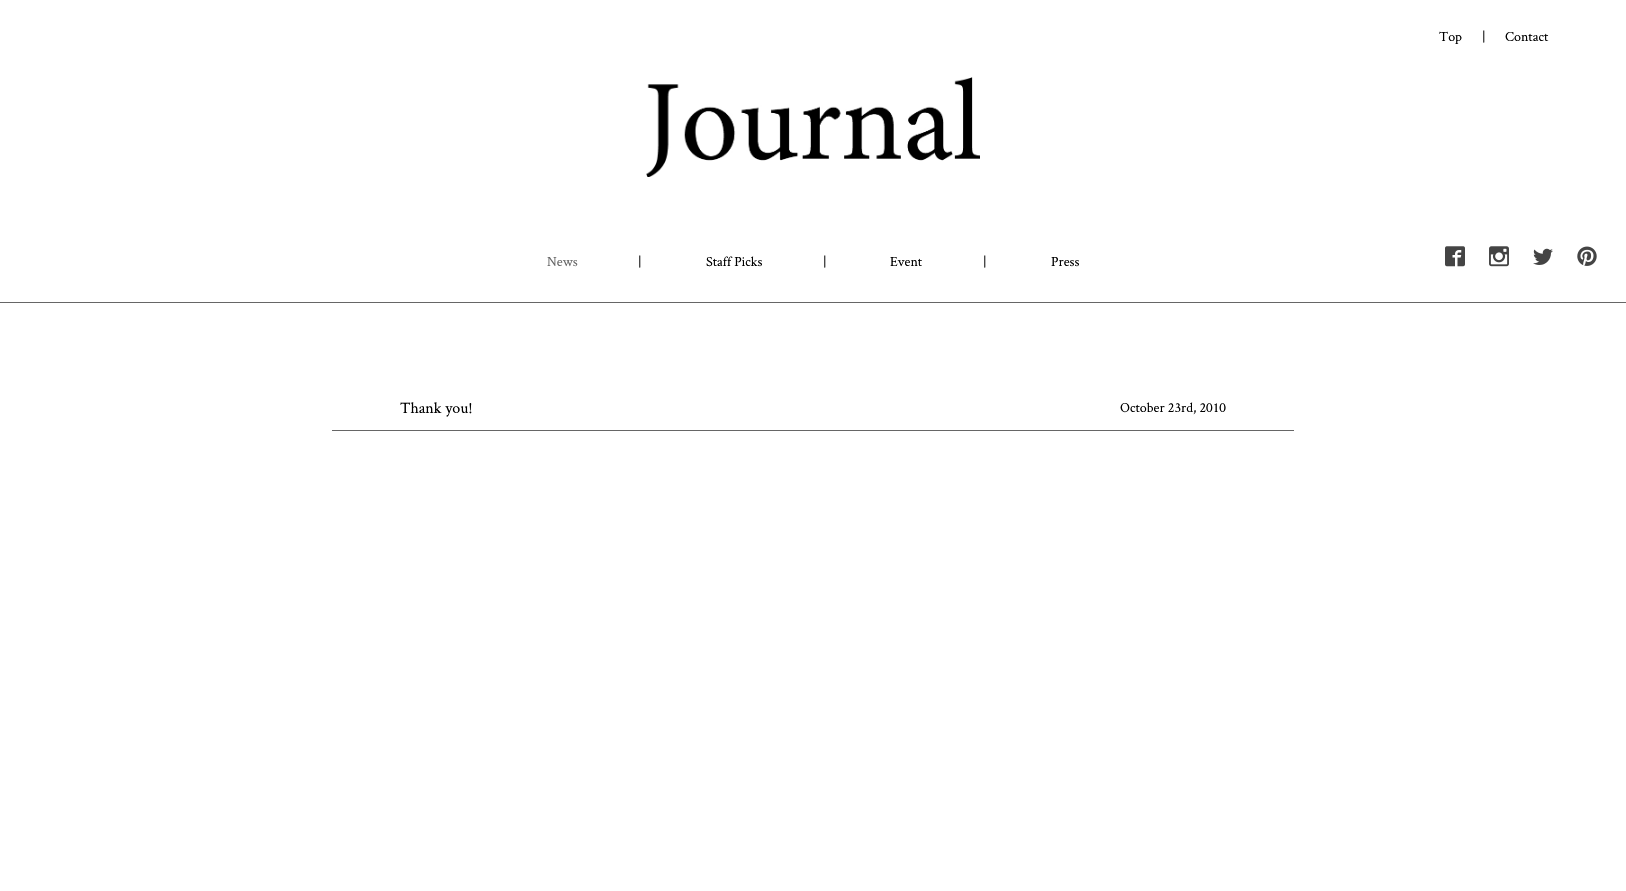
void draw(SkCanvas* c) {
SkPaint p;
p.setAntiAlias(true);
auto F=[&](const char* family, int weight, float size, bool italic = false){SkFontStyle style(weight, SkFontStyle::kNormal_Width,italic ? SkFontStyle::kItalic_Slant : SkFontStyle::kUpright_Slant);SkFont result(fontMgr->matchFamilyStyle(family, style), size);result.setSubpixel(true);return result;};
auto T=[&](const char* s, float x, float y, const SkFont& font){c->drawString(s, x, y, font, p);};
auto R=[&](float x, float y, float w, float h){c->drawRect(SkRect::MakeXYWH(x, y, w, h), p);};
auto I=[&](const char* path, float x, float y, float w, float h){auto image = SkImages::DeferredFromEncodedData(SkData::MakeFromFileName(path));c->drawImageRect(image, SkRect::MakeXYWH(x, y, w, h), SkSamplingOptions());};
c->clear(0xffffffff);
p.setColor(0xff666666);
R(0,302,1626,1);
auto f1 = F("Crimson Text",400,14);
p.setColor(0xff000000);
T("Top",1439,41,f1);
T("|",1482,41,f1);
T("Contact",1505,41,f1);
I("1.png",646,77,334,100);
p.setColor(0xff666666);
T("News",547,266,f1);
p.setColor(0xff000000);
T("|",638,266,f1);
T("Staff Picks",706,266,f1);
T("|",823,266,f1);
T("Event",890,266,f1);
T("|",983,266,f1);
T("Press",1051,266,f1);
I("2.png",1445,246,20,21);
I("3.png",1489,246,20,21);
I("4.png",1533,248,20,17);
I("5.png",1577,246,20,20);
p.setColor(0xff666666);
R(332,430,962,1);
auto f2 = F("Crimson Text",400,16);
p.setColor(0xff000000);
T("Thank you!",400,413,f2);
T("October 23rd, 2010",1120,412,f1);
}
